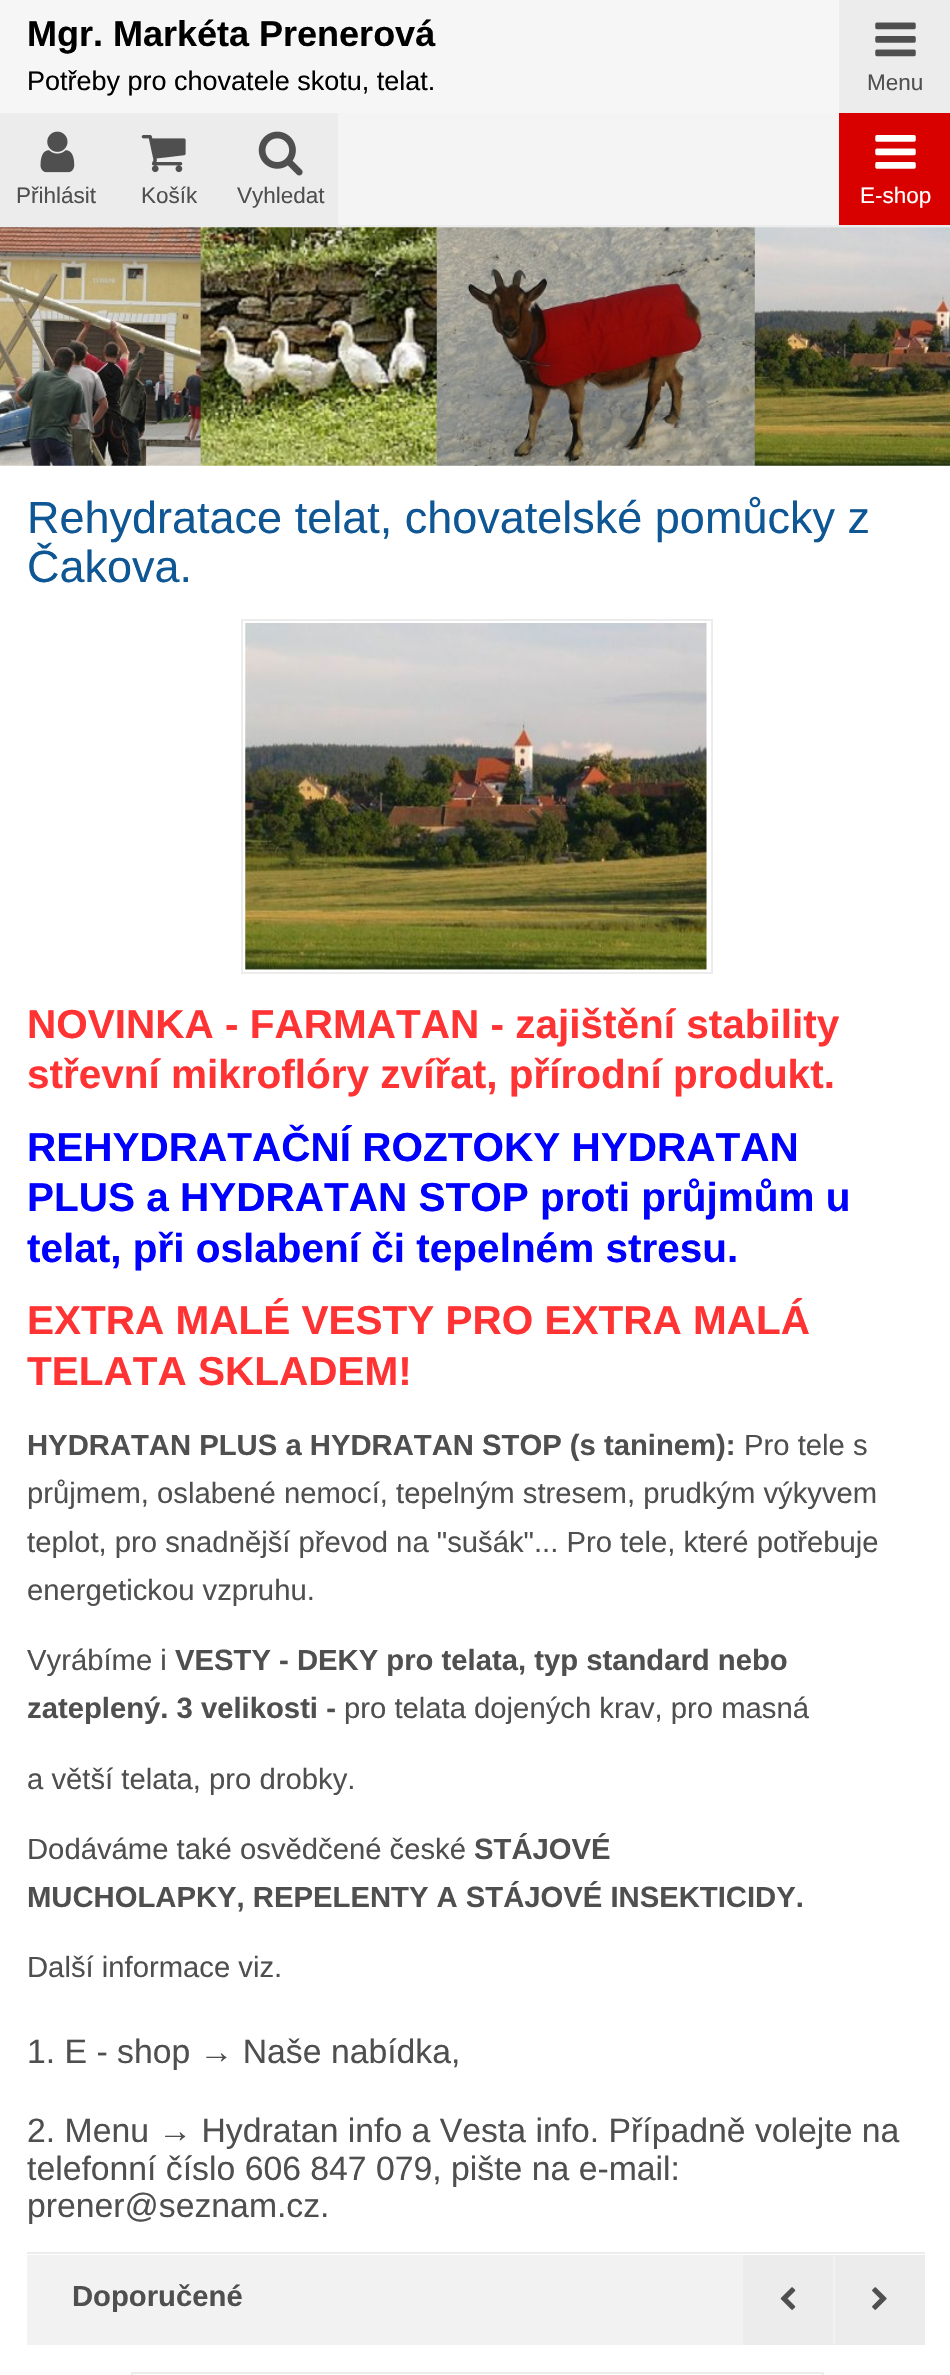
void draw(SkCanvas* c) {
SkPaint p;
p.setAntiAlias(true);
auto F=[&](const char* family, int weight, float size, bool italic = false){SkFontStyle style(weight, SkFontStyle::kNormal_Width,italic ? SkFontStyle::kItalic_Slant : SkFontStyle::kUpright_Slant);SkFont result(fontMgr->matchFamilyStyle(family, style), size);result.setSubpixel(true);return result;};
auto T=[&](const char* s, float x, float y, const SkFont& font){c->drawString(s, x, y, font, p);};
auto R=[&](float x, float y, float w, float h){c->drawRect(SkRect::MakeXYWH(x, y, w, h), p);};
auto I=[&](const char* path, float x, float y, float w, float h){auto image = SkImages::DeferredFromEncodedData(SkData::MakeFromFileName(path));c->drawImageRect(image, SkRect::MakeXYWH(x, y, w, h), SkSamplingOptions());};
c->clear(0xffffffff);
p.setColor(0xfff6f6f6);
R(0,0,839,113);
auto f1 = F("Liberation Sans",700,36);
p.setColor(0xff000000);
T("Mgr. Markéta Prenerová",27,46,f1);
auto f2 = F("Liberation Sans",400,27);
T("Potřeby pro chovatele skotu, telat.",27,90,f2);
p.setColor(0xfff4f4f4);
R(338,113,501,112);
p.setColor(0xffececec);
R(0,225,950,2);
R(0,113,338,112);
I("1.png",40,131,35,42);
auto f3 = F("Liberation Sans",400,22.5);
p.setColor(0xff4f4f4f);
T("Přihlásit",16,203,f3);
I("2.png",141,135,45,38);
T("Košík",141,203,f3);
I("3.png",258,131,45,45);
T("Vyhledat",237,203,f3);
p.setColor(0xffd90000);
R(839,113,111,112);
I("4.png",875,135,41,34);
p.setColor(0xffffffff);
T("E-shop",860,203,f3);
p.setColor(0xffececec);
R(839,0,111,113);
I("5.png",875,22,41,35);
p.setColor(0xff4f4f4f);
T("Menu",867,90,f3);
I("6.png",0,227,950,239);
auto f4 = F("Liberation Sans",400,45);
p.setColor(0xff0f5694);
T("Rehydratace telat, chovatelské pomůcky z",27,533,f4);
T("Čakova.",27,582,f4);
p.setStroke(true);
p.setStrokeWidth(2);
p.setColor(0xffececec);
c->drawRect(SkRect::MakeXYWH(242,620,470,353),p);
I("7.png",245,623,462,347);
auto f5 = F("Liberation Sans",700,40.5);
p.setStroke(false);
p.setColor(0xffff3333);
T("NOVINKA - FARMATAN - zajištění stability",27,1038,f5);
T("střevní mikroflóry zvířat, přírodní produkt.",27,1088,f5);
p.setColor(0xff0000ff);
T("REHYDRATAČNÍ ROZTOKY HYDRATAN",27,1161,f5);
T("PLUS a HYDRATAN STOP proti průjmům u",27,1211,f5);
T("telat, při oslabení či tepelném stresu.",27,1262,f5);
p.setColor(0xffff3333);
T("EXTRA MALÉ VESTY PRO EXTRA MALÁ",27,1334,f5);
T("TELATA SKLADEM!",27,1385,f5);
auto f6 = F("Liberation Sans",700,29.25);
p.setColor(0xff4f4f4f);
T("HYDRATAN PLUS a HYDRATAN STOP (s taninem):",27,1455,f6);
auto f7 = F("Liberation Sans",400,29.25);
T("Pro tele s",744,1455,f7);
T("průjmem, oslabené nemocí, tepelným stresem, prudkým výkyvem",27,1503,f7);
T("teplot, pro snadnější převod na \"sušák\"... Pro tele, které potřebuje",27,1552,f7);
T("energetickou vzpruhu.",27,1600,f7);
T("Vyrábíme i",27,1670,f7);
T("VESTY - DEKY pro telata, typ standard nebo",175,1670,f6);
T("zateplený. 3 velikosti -",27,1718,f6);
T("pro telata dojených krav, pro masná",344,1718,f7);
T("a větší telata, pro drobky.",27,1789,f7);
T("Dodáváme také osvědčené české",27,1859,f7);
T("STÁJOVÉ",474,1859,f6);
T("MUCHOLAPKY, REPELENTY A STÁJOVÉ INSEKTICIDY.",27,1907,f6);
T("Další informace viz.",27,1977,f7);
auto f8 = F("Liberation Sans",400,33.75);
T("1. E - shop → Naše nabídka,",27,2063,f8);
T("2. Menu → Hydratan info a Vesta info. Případně volejte na",27,2142,f8);
T("telefonní číslo 606 847 079, pište na e-mail:",27,2180,f8);
T("prener@seznam.cz.",27,2217,f8);
p.setColor(0xffececec);
R(27,2252,898,2);
p.setColor(0xfff2f2f2);
R(27,2255,808,90);
p.setColor(0xffececec);
R(743,2255,90,90);
I("8.png",780,2287,16,23);
R(835,2255,90,90);
I("9.png",872,2287,15,23);
p.setStroke(true);
c->drawRect(SkRect::MakeXYWH(132,2373,691,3),p);
p.setStroke(false);
p.setColor(0xff4f4f4f);
T("Doporučené",72,2306,f6);
}
